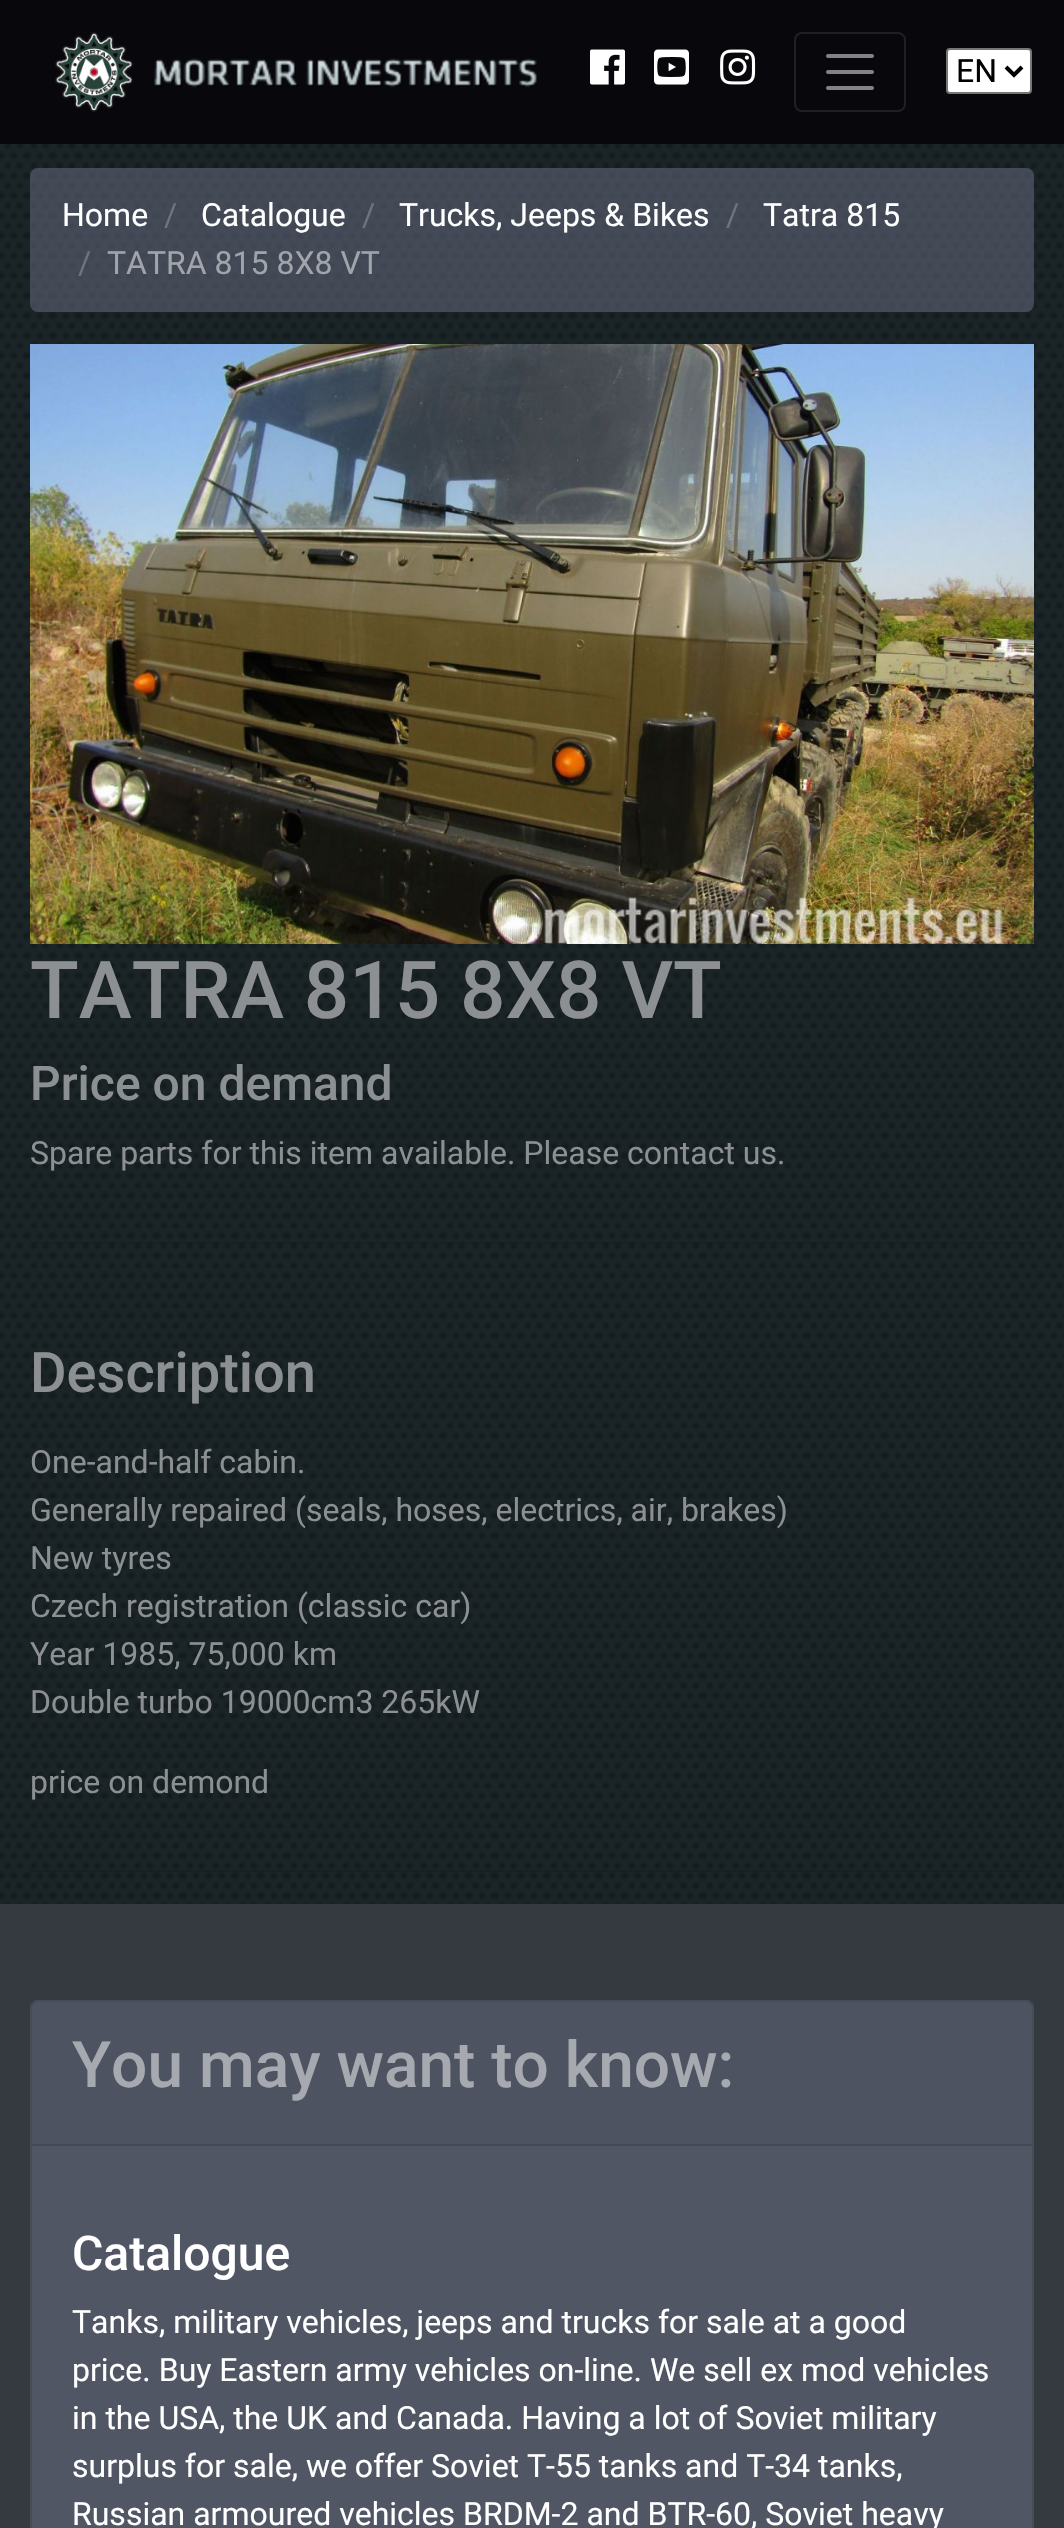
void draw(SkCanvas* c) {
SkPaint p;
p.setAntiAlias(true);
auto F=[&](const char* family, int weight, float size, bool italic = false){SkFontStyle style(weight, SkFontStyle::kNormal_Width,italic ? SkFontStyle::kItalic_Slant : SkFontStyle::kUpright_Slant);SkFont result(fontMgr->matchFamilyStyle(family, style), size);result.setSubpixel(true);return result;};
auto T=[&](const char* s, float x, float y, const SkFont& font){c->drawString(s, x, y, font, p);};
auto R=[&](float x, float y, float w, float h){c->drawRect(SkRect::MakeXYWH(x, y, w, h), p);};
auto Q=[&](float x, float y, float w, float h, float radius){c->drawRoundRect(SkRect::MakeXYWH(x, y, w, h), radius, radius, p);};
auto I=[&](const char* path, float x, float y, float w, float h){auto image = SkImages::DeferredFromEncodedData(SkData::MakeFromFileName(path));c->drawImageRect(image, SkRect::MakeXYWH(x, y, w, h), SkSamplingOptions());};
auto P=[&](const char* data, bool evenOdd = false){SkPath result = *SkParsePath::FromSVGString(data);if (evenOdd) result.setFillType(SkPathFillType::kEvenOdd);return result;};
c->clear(0xffffffff);
I("1.png",0,144,1064,1760);
p.setColor(0xff07070c);
R(0,0,1064,144);
I("2.png",55,32,482,80);
I("3.png",590,49,35,36);
I("4.png",654,49,35,36);
I("5.png",720,49,36,36);
p.setStroke(true);
p.setStrokeWidth(2);
p.setColor(0xff202024);
c->drawRoundRect(SkRect::MakeXYWH(795,33,110,78),7,7,p);
p.setStrokeWidth(4);
p.setStrokeCap(SkPaint::kRound_Cap);
p.setColor(0xff838386);
c->drawPath(P("M828 56h44m-44 16h44m-44 16h44"),p);
p.setStroke(false);
p.setColor(0xffffffff);
c->drawRoundRect(SkRect::MakeXYWH(947,49,84,44),3,3,p);
p.setStroke(true);
p.setStrokeWidth(2);
p.setStrokeCap(SkPaint::kButt_Cap);
p.setColor(0xff767676);
c->drawRoundRect(SkRect::MakeXYWH(947,49,84,44),3,3,p);
p.setStrokeWidth(4);
p.setColor(0xff000000);
c->drawPath(P("M1006 67l8 8l8-8"),p);
auto f1 = F("Roboto",400,32);
p.setStroke(false);
T("EN",956,82,f1);
p.setColor(0x7a6f748a);
Q(30,168,1004,144,8);
p.setColor(0xffffffff);
T("Home",62,226,f1);
p.setColor(0xff6c757d);
T("/",164,226,f1);
p.setColor(0xffffffff);
T("Catalogue",201,226,f1);
p.setColor(0xff6c757d);
T("/",362,226,f1);
p.setColor(0xffffffff);
T("Trucks, Jeeps & Bikes",399,226,f1);
p.setColor(0xff6c757d);
T("/",726,226,f1);
p.setColor(0xffffffff);
T("Tatra 815",763,226,f1);
p.setColor(0xff6c757d);
T("/",78,274,f1);
p.setColor(0xffa1a4aa);
T("TATRA 815 8X8 VT",107,274,f1);
I("6.png",30,344,1004,600);
auto f2 = F("Roboto",500,80);
p.setColor(0xff8c9092);
T("TATRA 815 8X8 VT",30,1018,f2);
auto f3 = F("Roboto",500,48);
T("Price on demand",30,1100,f3);
T("Spare parts for this item available. Please contact us.",30,1164,f1);
p.setColor(0x1a000000);
R(30,1242,1004,2);
auto f4 = F("Roboto",500,56);
p.setColor(0xff8c9092);
T("Description",30,1392,f4);
T("One-and-half cabin.",30,1473,f1);
T("Generally repaired (seals, hoses, electrics, air, brakes)",30,1521,f1);
T("New tyres",30,1569,f1);
T("Czech registration (classic car)",30,1617,f1);
T("Year 1985, 75,000 km",30,1665,f1);
T("Double turbo 19000cm3 265kW",30,1713,f1);
T("price on demond",30,1793,f1);
p.setColor(0xff182022);
R(30,1870,1004,2);
p.setColor(0xff343a40);
R(0,1904,1064,624);
p.setColor(0xff505664);
Q(30,2000,1004,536,8);
p.setStroke(true);
p.setStrokeWidth(2);
p.setColor(0x1f000000);
c->drawRoundRect(SkRect::MakeXYWH(31,2001,1002,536),7,7,p);
p.setStroke(false);
p.setColor(0x08000000);
R(32,2002,1000,142);
p.setColor(0xff444955);
R(32,2144,1000,2);
auto f5 = F("Roboto",500,64);
p.setColor(0xffa6a9b0);
T("You may want to know:",72,2087,f5);
p.setColor(0xffffffff);
T("Catalogue",72,2270,f3);
T("Tanks, military vehicles, jeeps and trucks for sale at a good",72,2333,f1);
T("price. Buy Eastern army vehicles on-line. We sell ex mod vehicles",72,2381,f1);
T("in the USA, the UK and Canada. Having a lot of Soviet military",72,2429,f1);
T("surplus for sale, we offer Soviet T-55 tanks and T-34 tanks,",72,2477,f1);
T("Russian armoured vehicles BRDM-2 and BTR-60, Soviet heavy",72,2525,f1);
}
